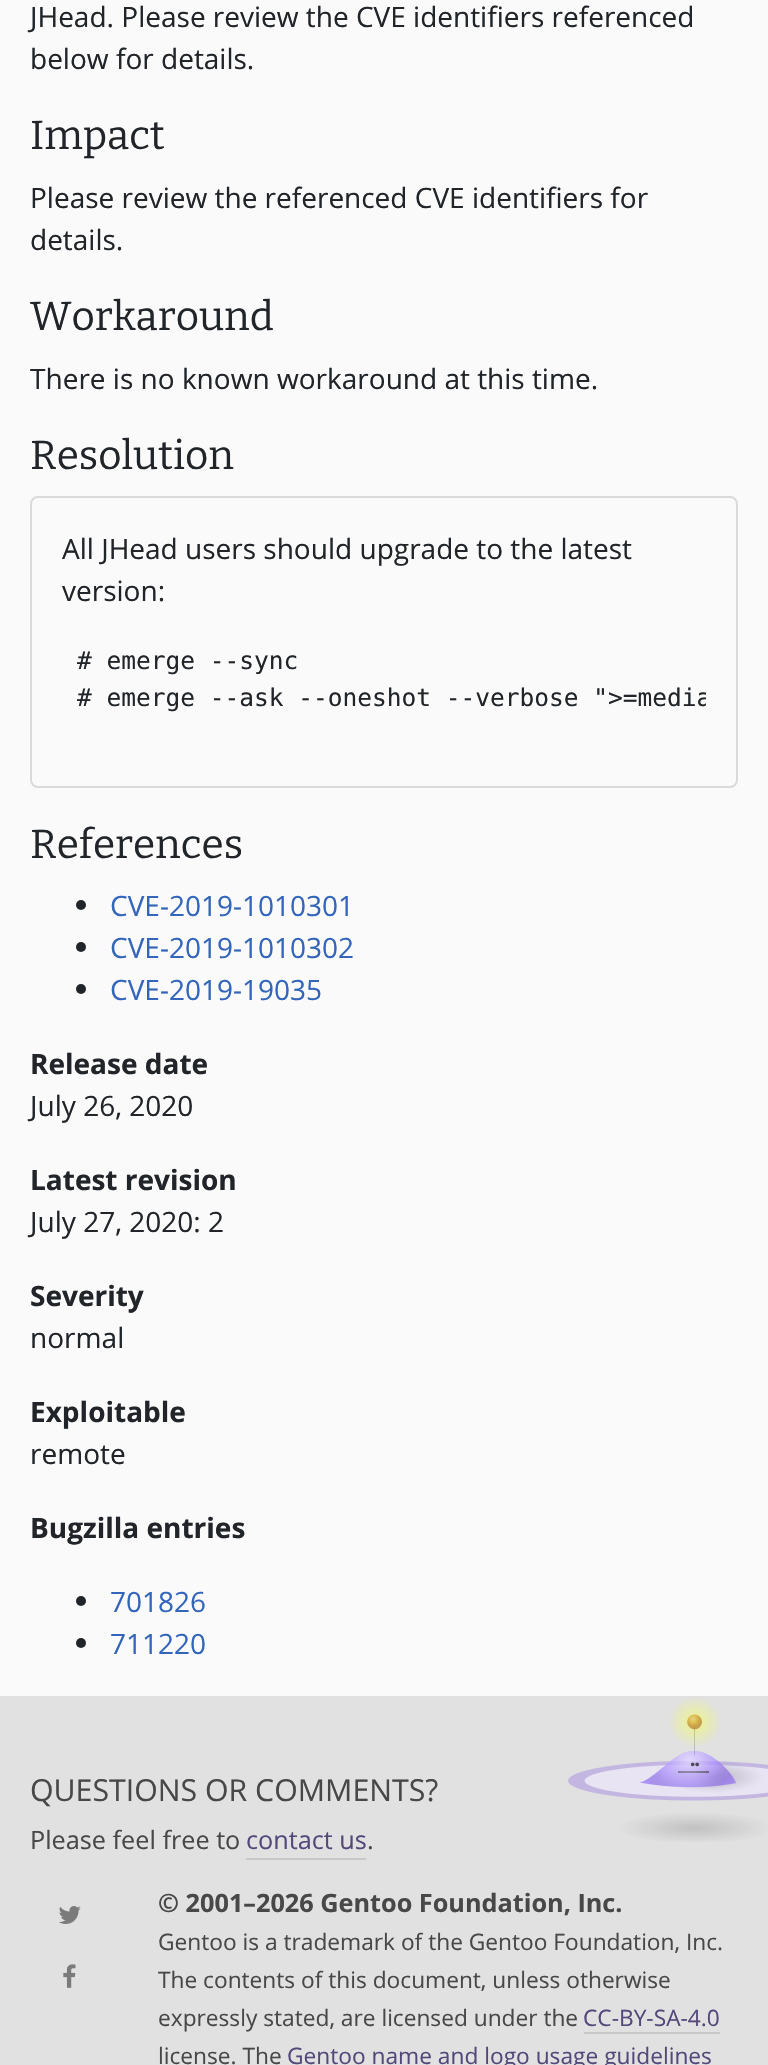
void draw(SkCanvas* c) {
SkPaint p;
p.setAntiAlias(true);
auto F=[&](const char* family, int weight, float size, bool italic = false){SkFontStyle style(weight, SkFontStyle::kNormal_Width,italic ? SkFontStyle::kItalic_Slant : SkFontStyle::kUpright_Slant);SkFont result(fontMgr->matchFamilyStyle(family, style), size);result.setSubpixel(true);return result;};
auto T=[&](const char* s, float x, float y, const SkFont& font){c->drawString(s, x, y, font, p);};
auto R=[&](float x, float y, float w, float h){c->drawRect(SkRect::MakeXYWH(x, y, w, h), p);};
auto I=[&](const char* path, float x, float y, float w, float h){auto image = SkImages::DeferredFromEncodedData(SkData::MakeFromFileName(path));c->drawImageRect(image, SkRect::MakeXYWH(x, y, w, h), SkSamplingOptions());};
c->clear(0xfffafafa);
auto f1 = F("Open Sans",400,28);
p.setColor(0xff212529);
T("JHead. Please review the CVE identifiers referenced",30,27,f1);
T("below for details.",30,69,f1);
auto f2 = F("Bitter",400,40.5);
T("Impact",30,149,f2);
T("Please review the referenced CVE identifiers for",30,208,f1);
T("details.",30,250,f1);
T("Workaround",30,330,f2);
T("There is no known workaround at this time.",30,389,f1);
T("Resolution",30,469,f2);
p.setStroke(true);
p.setStrokeWidth(2);
p.setColor(0xffd9dadb);
c->drawRoundRect(SkRect::MakeXYWH(31,497,706,290),7,7,p);
p.setStroke(false);
p.setColor(0xff212529);
T("All JHead users should upgrade to the latest",62,559,f1);
T("version:",62,601,f1);
auto f3 = F("DejaVu Sans Mono",400,24.5);
T("# emerge --sync",77,669,f3);
c->save();
c->clipRect(SkRect::MakeXYWH(62,644,644,110));
T("# emerge --ask --oneshot --verbose \">=media",77,706,f3);
c->restore();
T("References",30,858,f2);
c->drawCircle(81,905,5,p);
p.setColor(0xff3366bb);
T("CVE-2019-1010301",110,916,f1);
p.setColor(0xff212529);
c->drawCircle(81,947,5,p);
p.setColor(0xff3366bb);
T("CVE-2019-1010302",110,958,f1);
p.setColor(0xff212529);
c->drawCircle(81,989,5,p);
p.setColor(0xff3366bb);
T("CVE-2019-19035",110,1000,f1);
auto f4 = F("Open Sans",700,28);
p.setColor(0xff212529);
T("Release date",30,1074,f4);
T("July 26, 2020",30,1116,f1);
T("Latest revision",30,1190,f4);
T("July 27, 2020: 2",30,1232,f1);
T("Severity",30,1306,f4);
T("normal",30,1348,f1);
T("Exploitable",30,1422,f4);
T("remote",30,1464,f1);
T("Bugzilla entries",30,1538,f4);
c->drawCircle(81,1601,5,p);
p.setColor(0xff3366bb);
T("701826",110,1612,f1);
p.setColor(0xff212529);
c->drawCircle(81,1643,5,p);
p.setColor(0xff3366bb);
T("711220",110,1654,f1);
p.setColor(0xffe1e1e1);
R(0,1696,768,369);
I("1.png",568,1697,200,145);
auto f5 = F("Open Sans",400,30.25);
p.setColor(0xff484848);
T("QUESTIONS OR COMMENTS?",30,1801,f5);
auto f6 = F("Open Sans",400,25.25);
T("Please feel free to",30,1849,f6);
p.setColor(0xff54487a);
T("contact us",246,1849,f6);
p.setColor(0xffc8c8c8);
R(246,1858,120,2);
p.setColor(0xff484848);
T(".",367,1849,f6);
I("2.png",59,1906,22,18);
I("3.png",63,1964,13,24);
auto f7 = F("Open Sans",700,25.25);
T("© 2001–2026 Gentoo Foundation, Inc.",158,1912,f7);
auto f8 = F("Open Sans",400,22.7);
T("Gentoo is a trademark of the Gentoo Foundation, Inc.",158,1950,f8);
T("The contents of this document, unless otherwise",158,1988,f8);
T("expressly stated, are licensed under the",158,2026,f8);
p.setColor(0xff54487a);
T("CC-BY-SA-4.0",583,2026,f8);
p.setColor(0xffc8c8c8);
R(584,2032,136,2);
p.setColor(0xff484848);
T("license. The",158,2064,f8);
p.setColor(0xff54487a);
T("Gentoo name and logo usage guidelines",287,2064,f8);
}
